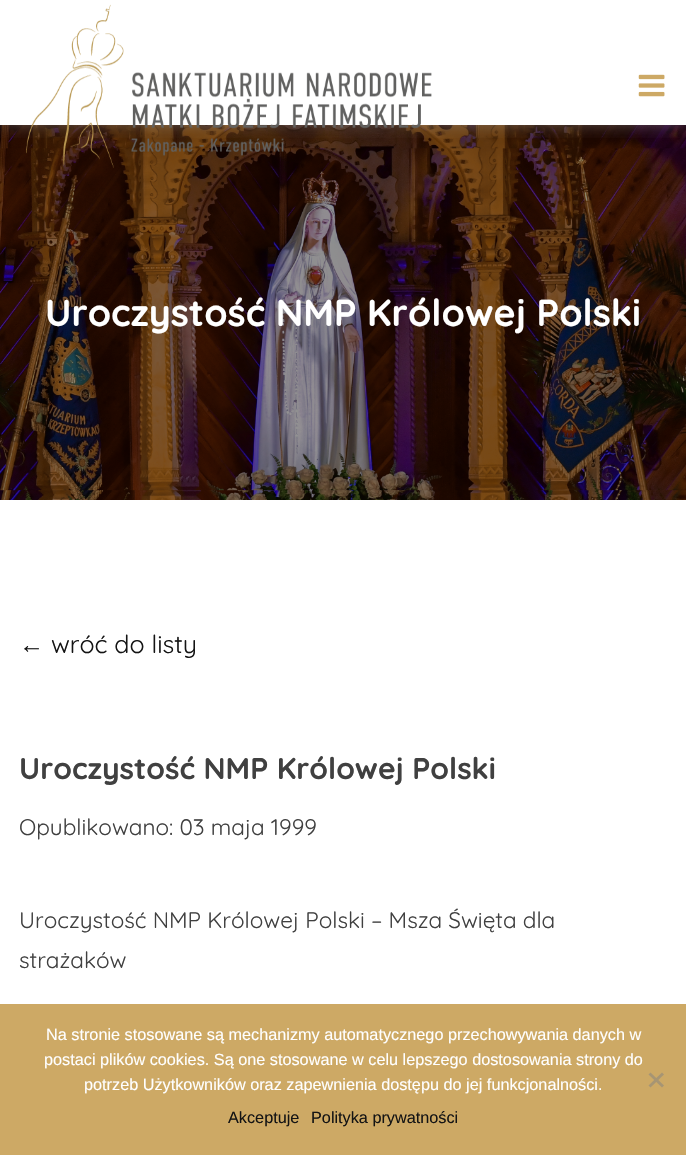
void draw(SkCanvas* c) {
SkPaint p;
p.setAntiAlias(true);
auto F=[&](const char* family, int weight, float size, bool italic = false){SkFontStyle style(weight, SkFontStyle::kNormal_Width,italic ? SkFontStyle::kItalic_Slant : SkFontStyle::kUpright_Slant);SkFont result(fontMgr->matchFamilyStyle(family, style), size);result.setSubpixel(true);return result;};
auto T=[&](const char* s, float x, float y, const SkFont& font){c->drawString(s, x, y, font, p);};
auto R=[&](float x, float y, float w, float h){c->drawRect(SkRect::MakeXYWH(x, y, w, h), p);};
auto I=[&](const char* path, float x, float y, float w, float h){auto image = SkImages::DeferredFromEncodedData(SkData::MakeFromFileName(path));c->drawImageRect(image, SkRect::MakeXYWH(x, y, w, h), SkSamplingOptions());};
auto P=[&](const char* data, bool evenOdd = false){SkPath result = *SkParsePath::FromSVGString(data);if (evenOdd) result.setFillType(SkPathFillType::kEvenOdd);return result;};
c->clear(0xffffffff);
I("3.png",0,125,686,375);
c->save();
c->clipRect(SkRect::MakeXYWH(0,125,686,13));
p.setColor(0xffbdbdbd);
p.setMaskFilter(SkMaskFilter::MakeBlur(kNormal_SkBlurStyle, 11));
c->drawRect(SkRect::MakeXYWH(0,-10,686,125),p);
p.setMaskFilter(nullptr);
c->restore();
I("1.png",26,4,406,164);
I("2.png",638,74,27,23);
auto f1 = F("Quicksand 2",300,37.5);
p.setColor(0xffffffff);
T("Uroczystość NMP Królowej Polski",45,326,f1);
auto f2 = F("Liberation Sans",400,25);
p.setColor(0xff141414);
T("←",19,653,f2);
auto f3 = F("Quicksand",300,25);
T("wróć do listy",51,653,f3);
auto f4 = F("Quicksand 2",300,30);
p.setColor(0xff404040);
T("Uroczystość NMP Królowej Polski",19,779,f4);
auto f5 = F("Quicksand",300,22.5);
T("Opublikowano: 03 maja 1999",19,835,f5);
T("Uroczystość NMP Królowej Polski – Msza Święta dla",19,928,f5);
T("strażaków",19,968,f5);
p.setColor(0xffcda965);
R(0,1004,686,151);
auto f6 = F("Liberation Sans",400,16.25);
p.setColor(0xffffffff);
T("Na stronie stosowane są mechanizmy automatycznego przechowywania danych w",46,1040,f6);
T("postaci plików cookies. Są one stosowane w celu lepszego dostosowania strony do",44,1065,f6);
T("potrzeb Użytkowników oraz zapewnienia dostępu do jej funkcjonalności.",84,1090,f6);
p.setColor(0xffa79573);
c->drawPath(P("M662 1072.5l2 2l-13.5 13l-2-2z"),p);
c->drawPath(P("M648.5 1074.5l2-2l13.5 13l-2 2z"),p);
p.setColor(0xff141414);
T("Akceptuje",228,1123,f6);
T("Polityka prywatności",311,1123,f6);
}
